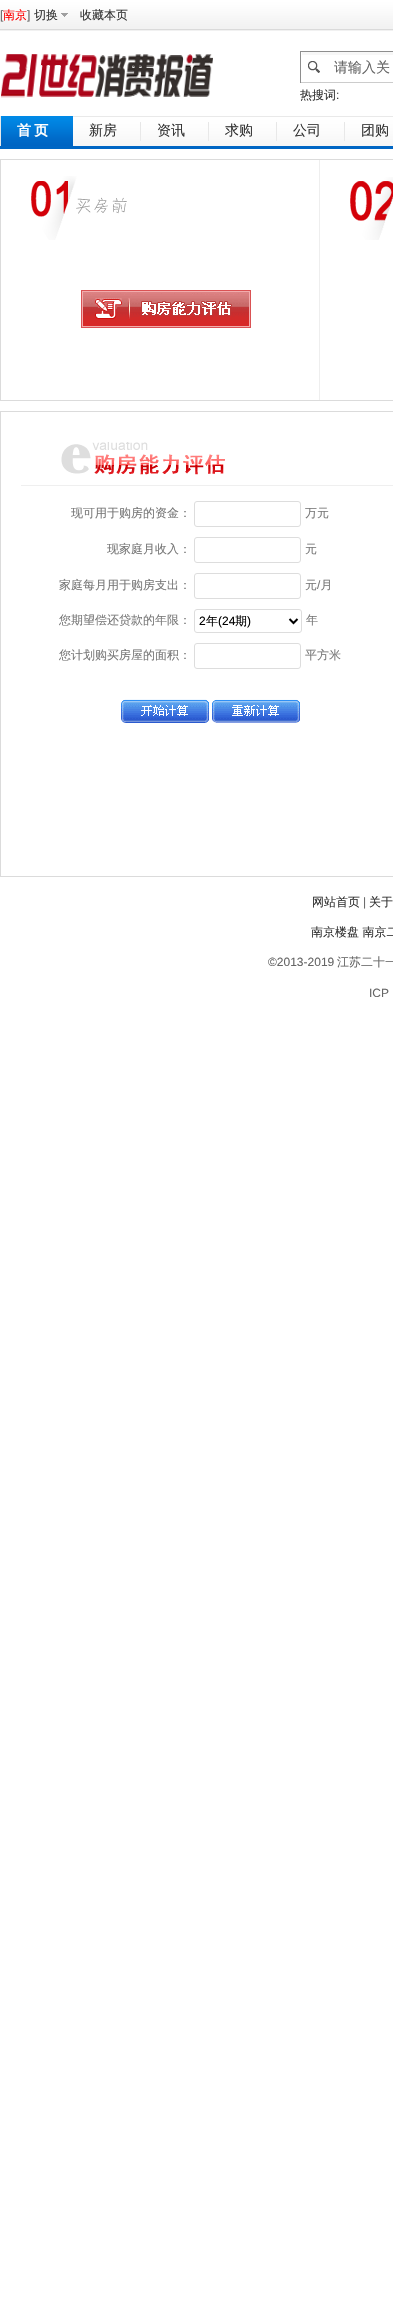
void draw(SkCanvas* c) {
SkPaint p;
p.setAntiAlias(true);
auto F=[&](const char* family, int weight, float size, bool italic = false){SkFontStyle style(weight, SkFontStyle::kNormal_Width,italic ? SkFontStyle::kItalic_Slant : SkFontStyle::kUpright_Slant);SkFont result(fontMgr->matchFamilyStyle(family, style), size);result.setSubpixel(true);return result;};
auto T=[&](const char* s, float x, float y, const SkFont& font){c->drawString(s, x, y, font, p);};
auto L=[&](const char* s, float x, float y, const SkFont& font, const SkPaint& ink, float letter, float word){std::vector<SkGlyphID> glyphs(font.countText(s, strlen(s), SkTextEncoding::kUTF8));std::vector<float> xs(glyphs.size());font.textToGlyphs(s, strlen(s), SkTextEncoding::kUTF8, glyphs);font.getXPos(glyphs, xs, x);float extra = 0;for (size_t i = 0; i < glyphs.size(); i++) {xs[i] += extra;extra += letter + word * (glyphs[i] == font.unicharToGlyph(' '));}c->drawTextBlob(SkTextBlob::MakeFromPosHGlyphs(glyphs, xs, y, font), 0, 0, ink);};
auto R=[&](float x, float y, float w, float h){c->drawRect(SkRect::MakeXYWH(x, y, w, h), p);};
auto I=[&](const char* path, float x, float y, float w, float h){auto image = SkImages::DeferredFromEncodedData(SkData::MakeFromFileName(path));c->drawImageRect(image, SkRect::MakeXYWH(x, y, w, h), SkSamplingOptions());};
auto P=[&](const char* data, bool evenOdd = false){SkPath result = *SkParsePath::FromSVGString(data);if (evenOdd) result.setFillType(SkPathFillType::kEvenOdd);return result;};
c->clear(0xffffffff);
p.setColor(0xfff1f1f1);
R(0,30,393,1);
I("1.png",0,0,393,30);
I("2.png",61,13,7,4);
auto f1 = F("Liberation Sans",400,12);
p.setColor(0xff666666);
T("[",0,19,f1);
auto f2 = F("WenQuanYi Zen Hei",500,12);
p.setColor(0xffff0000);
T("南京",3,19,f2);
p.setColor(0xff666666);
T("]",27,19,f1);
p.setColor(0xff333333);
T("切换",34,19,f2);
T("收藏本页",80,19,f2);
I("3.png",1,54,212,44);
I("4.png",300,51,93,32);
auto f3 = F("WenQuanYi Zen Hei",500,14);
p.setColor(0xff666666);
T("请输入关",334,72,f3);
p.setColor(0xff333333);
T("热搜词",300,99,f2);
T(":",336,99,f1);
p.setColor(0xff0066c4);
R(0,146,393,3);
I("5.png",73,116,320,30);
p.setColor(0xffe9e9e9);
R(0,116,1,30);
I("6.png",1,116,72,30);
auto f4 = F("WenQuanYi Zen Hei",700,14);
p.setColor(0xffffffff);
L("首 页",17,135,f4,p,0,-1);
I("7.png",140,122,1,19);
p.setColor(0xff333333);
T("新房",89,135,f3);
I("7.png",208,122,1,19);
T("资讯",157,135,f3);
I("7.png",276,122,1,19);
T("求购",225,135,f3);
I("7.png",344,122,1,19);
T("公司",293,135,f3);
T("团购",361,135,f3);
p.setStroke(true);
p.setStrokeWidth(1);
p.setColor(0xffdbdbdb);
c->drawRect(SkRect::MakeXYWH(.5,159.5,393,241),p);
p.setStroke(false);
p.setColor(0xffeeeeee);
R(319,160,1,240);
I("8.png",31,176,96,64);
I("9.png",81,290,170,38);
I("10.png",350,177,43,63);
p.setStroke(true);
p.setColor(0xffdbdbdb);
c->drawRect(SkRect::MakeXYWH(.5,411.5,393,465),p);
p.setStroke(false);
p.setColor(0xffefefef);
R(21,485,372,1);
I("11.png",61,442,164,33);
p.setColor(0xff777777);
T("现可用于购房的资金：",71,517,f2);
p.setStroke(true);
p.setColor(0xffdddddd);
c->drawRoundRect(SkRect::MakeXYWH(194.5,501.5,106,25),2.5,2.5,p);
p.setStroke(false);
p.setColor(0xff777777);
T("万元",305,517,f2);
T("现家庭月收入：",107,553,f2);
p.setStroke(true);
p.setColor(0xffdddddd);
c->drawRoundRect(SkRect::MakeXYWH(194.5,537.5,106,25),2.5,2.5,p);
p.setStroke(false);
p.setColor(0xff777777);
T("元",305,553,f2);
T("家庭每月用于购房支出：",59,589,f2);
p.setStroke(true);
p.setColor(0xffdddddd);
c->drawRoundRect(SkRect::MakeXYWH(194.5,573.5,106,25),2.5,2.5,p);
p.setStroke(false);
p.setColor(0xff777777);
T("元 月",305,589,f2);
T("/",317,589,f1);
T("您期望偿还贷款的年限：",59,624,f2);
p.setStroke(true);
p.setColor(0xffdddddd);
c->drawRoundRect(SkRect::MakeXYWH(194.5,609.5,107,23),2.5,2.5,p);
p.setStrokeWidth(2);
p.setColor(0xff000000);
c->drawPath(P("M289.5 619l4 4l4-4"),p);
p.setStroke(false);
T("2",199,625,f1);
T("年",206,625,f2);
T("(24",218,625,f1);
T("期",235,625,f2);
T(")",247,625,f1);
p.setColor(0xff777777);
T("年",306,624,f2);
T("您计划购买房屋的面积：",59,659,f2);
p.setStroke(true);
p.setStrokeWidth(1);
p.setColor(0xffdddddd);
c->drawRoundRect(SkRect::MakeXYWH(194.5,643.5,106,25),2.5,2.5,p);
p.setStroke(false);
p.setColor(0xff777777);
T("平方米",305,659,f2);
I("12.png",121,699,88,24);
I("13.png",212,699,88,24);
p.setColor(0xff333333);
T("网站首页",312,906,f2);
p.setColor(0xff666666);
T("|",363,906,f1);
p.setColor(0xff333333);
T("关于",369,906,f2);
T("南京楼盘 南京二",311,936,f2);
p.setColor(0xff666666);
T("©2013-2019",268,966,f1);
T("江苏二十一",337,966,f2);
T("ICP",369,997,f1);
}
